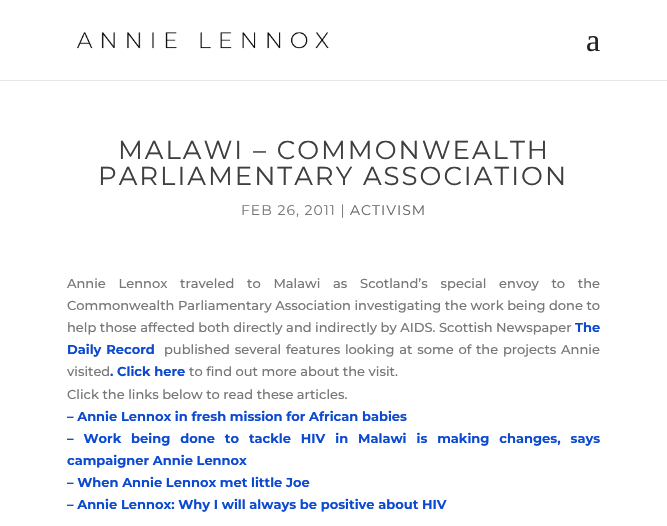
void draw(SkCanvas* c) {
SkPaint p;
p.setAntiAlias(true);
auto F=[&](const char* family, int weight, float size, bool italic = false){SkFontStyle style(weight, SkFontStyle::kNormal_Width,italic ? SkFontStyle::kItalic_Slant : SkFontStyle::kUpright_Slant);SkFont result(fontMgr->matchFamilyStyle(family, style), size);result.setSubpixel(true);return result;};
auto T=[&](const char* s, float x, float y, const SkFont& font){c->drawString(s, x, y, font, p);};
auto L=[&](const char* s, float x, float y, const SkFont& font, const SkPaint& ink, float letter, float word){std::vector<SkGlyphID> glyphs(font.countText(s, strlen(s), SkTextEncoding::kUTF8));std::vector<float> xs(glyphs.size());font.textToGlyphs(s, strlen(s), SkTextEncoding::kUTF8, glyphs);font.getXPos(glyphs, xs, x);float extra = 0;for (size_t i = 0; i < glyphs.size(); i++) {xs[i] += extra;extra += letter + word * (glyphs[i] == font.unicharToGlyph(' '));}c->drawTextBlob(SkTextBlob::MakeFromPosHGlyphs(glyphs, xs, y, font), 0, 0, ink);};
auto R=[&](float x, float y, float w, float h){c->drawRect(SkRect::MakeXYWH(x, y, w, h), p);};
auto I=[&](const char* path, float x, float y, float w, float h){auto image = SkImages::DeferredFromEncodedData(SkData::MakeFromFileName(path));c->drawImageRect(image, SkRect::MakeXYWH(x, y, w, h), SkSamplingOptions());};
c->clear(0xffffffff);
p.setColor(0xffe6e6e6);
R(0,80,667,1);
I("1.png",77,32,252,17);
auto f1 = F("Liberation Serif",400,32);
p.setColor(0xff222222);
T("a",586,51,f1);
auto f2 = F("Montserrat",100,26);
p.setColor(0xff3f3f3f);
L("MALAWI – COMMONWEALTH",118,159,f2,p,2,0);
L("PARLIAMENTARY ASSOCIATION",98,185,f2,p,2,0);
auto f3 = F("Montserrat",100,14);
p.setColor(0xff777777);
L("FEB 26, 2011 |",241,215,f3,p,1,0);
p.setColor(0xff666666);
L("ACTIVISM",350,215,f3,p,1,0);
auto f4 = F("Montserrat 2",100,13);
p.setColor(0xff777777);
L("Annie Lennox traveled to Malawi as Scotland’s special envoy to the",67,288,f4,p,0,9.25);
T("Commonwealth Parliamentary Association investigating the work being done to",67,310,f4);
T("help those affected both directly and indirectly by AIDS. Scottish Newspaper",67,332,f4);
auto f5 = F("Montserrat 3",100,13);
p.setColor(0xff0c4ad1);
T("The",575,332,f5);
L("Daily Record",67,354,f5,p,0,1.25);
p.setColor(0xff777777);
L("published several features looking at some of the projects Annie",164,354,f4,p,0,1.25);
T("visited",67,376,f4);
p.setColor(0xff0c4ad1);
T(". Click here",110,376,f5);
p.setColor(0xff777777);
T("to find out more about the visit.",189,376,f4);
T("Click the links below to read these articles.",67,399,f4);
p.setColor(0xff0c4ad1);
T("– Annie Lennox in fresh mission for African babies",67,421,f5);
L("– Work being done to tackle HIV in Malawi is making changes, says",67,443,f5,p,0,6.25);
T("campaigner Annie Lennox",67,465,f5);
T("– When Annie Lennox met little Joe",67,487,f5);
T("– Annie Lennox: Why I will always be positive about HIV",67,509,f5);
}
